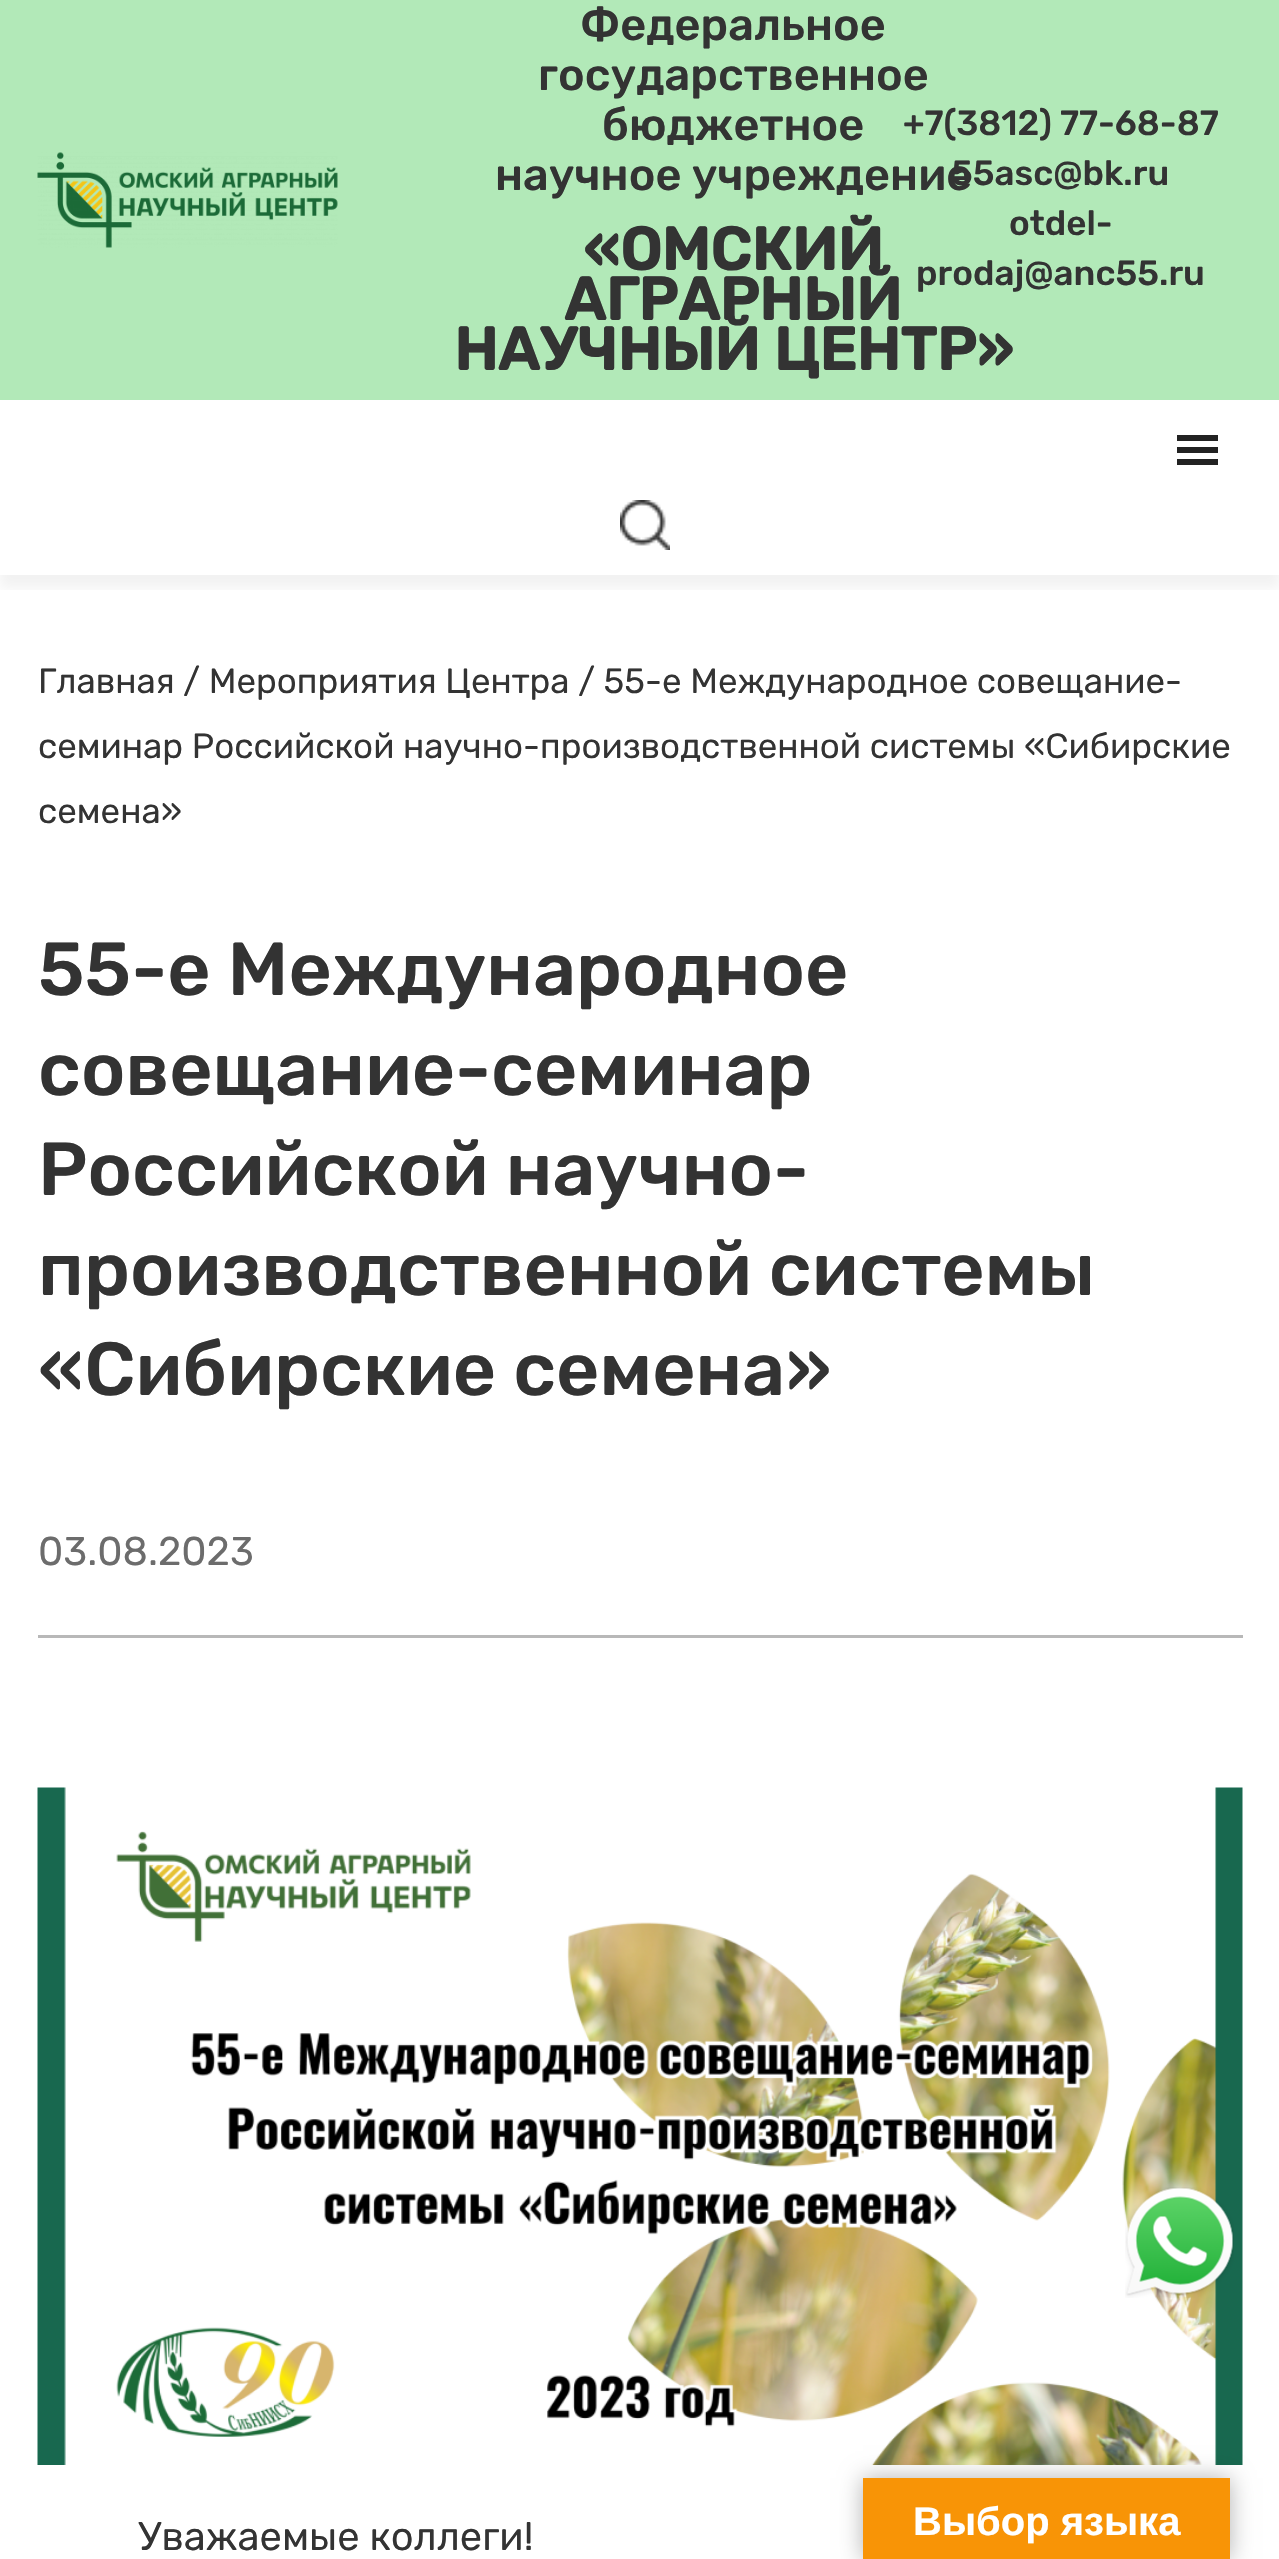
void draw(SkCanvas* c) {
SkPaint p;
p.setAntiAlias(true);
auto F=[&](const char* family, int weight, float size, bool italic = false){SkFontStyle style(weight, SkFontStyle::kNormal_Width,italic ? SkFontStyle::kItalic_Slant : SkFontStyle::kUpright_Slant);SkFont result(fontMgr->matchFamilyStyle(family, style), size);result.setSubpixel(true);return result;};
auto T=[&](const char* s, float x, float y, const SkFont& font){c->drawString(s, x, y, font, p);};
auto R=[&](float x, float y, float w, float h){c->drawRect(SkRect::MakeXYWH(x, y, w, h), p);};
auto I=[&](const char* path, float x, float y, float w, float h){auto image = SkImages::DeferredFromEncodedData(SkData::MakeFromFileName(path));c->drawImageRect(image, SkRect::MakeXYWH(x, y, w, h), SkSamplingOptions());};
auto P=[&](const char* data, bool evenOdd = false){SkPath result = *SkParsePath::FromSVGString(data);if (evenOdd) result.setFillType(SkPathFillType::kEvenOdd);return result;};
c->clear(0xffffffff);
p.setColor(0xffb2e9b8);
R(0,0,1279,400);
I("1.png",37,152,301,96);
auto f1 = F("Rubik",500,45);
p.setColor(0xff333333);
T("Федеральное",580,40,f1);
T("государственное",538,90,f1);
T("бюджетное",602,140,f1);
T("научное учреждение",495,190,f1);
auto f2 = F("Rubik",700,60);
T("«ОМСКИЙ",583,270,f2);
T("АГРАРНЫЙ",564,320,f2);
T("НАУЧНЫЙ ЦЕНТР»",454,370,f2);
auto f3 = F("Rubik",500,35);
T("+7(3812) 77-68-87",903,135,f3);
T("55asc@bk.ru",951,185,f3);
T("otdel-",1009,235,f3);
T("prodaj@anc55.ru",916,285,f3);
c->save();
c->clipRect(SkRect::MakeXYWH(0,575,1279,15));
p.setColor(0x0d000000);
p.setMaskFilter(SkMaskFilter::MakeBlur(kNormal_SkBlurStyle, 6));
c->drawRect(SkRect::MakeXYWH(0,413,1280,175),p);
p.setMaskFilter(nullptr);
c->restore();
p.setColor(0xff222222);
c->drawPath(P("M1177 465h41v-6h-41zm0-30v6h41v-6zm0 18h41v-6h-41z"),p);
I("2.png",620,500,50,50);
auto f4 = F("Rubik",400,35);
p.setColor(0xff333333);
T("Главная / Мероприятия Центра / 55-e Международное совещание-",38,693,f4);
T("семинар Российской научно-производственной системы «Сибирские",38,758,f4);
T("семена»",38,823,f4);
auto f5 = F("Rubik",500,75);
T("55-e Международное",38,995,f5);
T("совещание-семинар",38,1095,f5);
T("Российской научно-",38,1195,f5);
T("производственной системы",38,1295,f5);
T("«Сибирские семена»",38,1395,f5);
p.setColor(0xffb8b8b8);
R(38,1635,1205,3);
auto f6 = F("Rubik",400,40);
p.setColor(0xff6c6c6c);
T("03.08.2023",38,1565,f6);
I("3.png",37,1787,1206,678);
p.setColor(0xff333333);
T("Уважаемые коллеги!",138,2550,f6);
I("4.png",1125,2187,109,111);
p.setColor(0x4d000000);
p.setMaskFilter(SkMaskFilter::MakeBlur(kNormal_SkBlurStyle, 11));
c->drawRect(SkRect::MakeXYWH(863,2478,367,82),p);
p.setMaskFilter(nullptr);
p.setColor(0xfff89406);
R(863,2478,367,81);
auto f7 = F("Liberation Sans",700,40);
p.setColor(0xffffffff);
T("Выбор языка",913,2535,f7);
}
